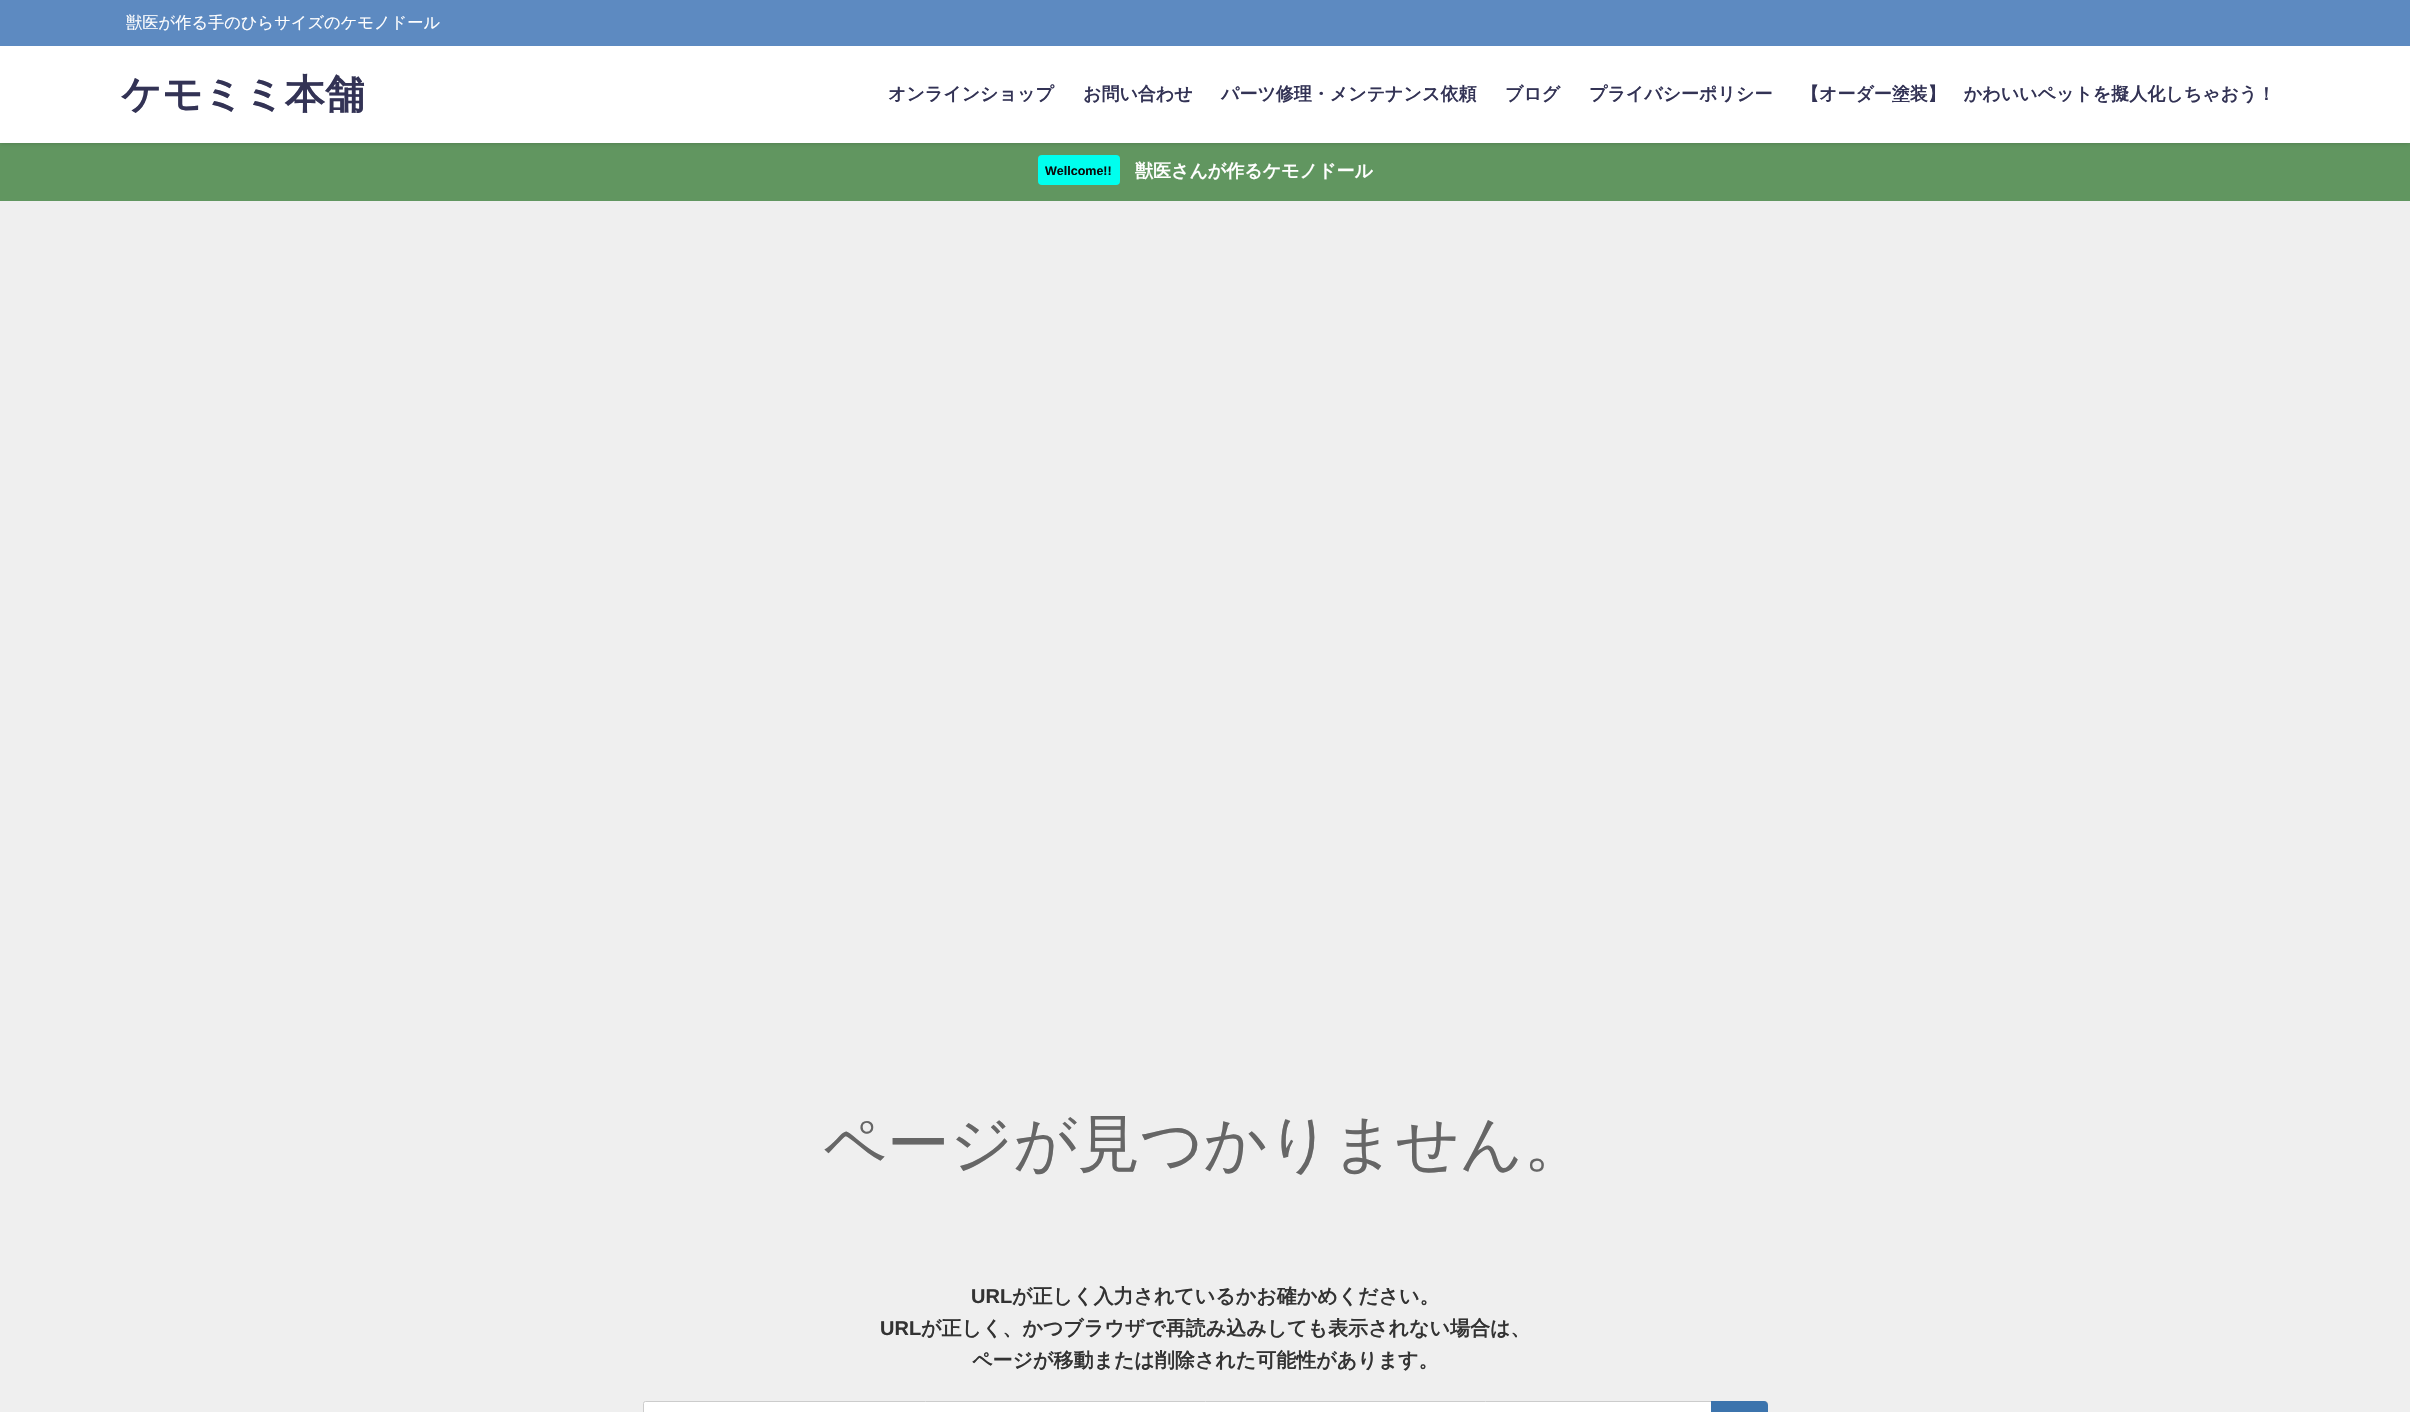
void draw(SkCanvas* c) {
SkPaint p;
p.setAntiAlias(true);
auto F=[&](const char* family, int weight, float size, bool italic = false){SkFontStyle style(weight, SkFontStyle::kNormal_Width,italic ? SkFontStyle::kItalic_Slant : SkFontStyle::kUpright_Slant);SkFont result(fontMgr->matchFamilyStyle(family, style), size);result.setSubpixel(true);return result;};
auto T=[&](const char* s, float x, float y, const SkFont& font){c->drawString(s, x, y, font, p);};
auto R=[&](float x, float y, float w, float h){c->drawRect(SkRect::MakeXYWH(x, y, w, h), p);};
auto Q=[&](float x, float y, float w, float h, float radius){c->drawRoundRect(SkRect::MakeXYWH(x, y, w, h), radius, radius, p);};
auto P=[&](const char* data, bool evenOdd = false){SkPath result = *SkParsePath::FromSVGString(data);if (evenOdd) result.setFillType(SkPathFillType::kEvenOdd);return result;};
c->clear(0xffefefef);
p.setColor(0xff619660);
R(0,143,2410,58);
p.setColor(0x33000000);
p.setMaskFilter(SkMaskFilter::MakeBlur(kNormal_SkBlurStyle, 2.5));
c->drawRect(SkRect::MakeXYWH(0,0,2410,143),p);
p.setMaskFilter(nullptr);
p.setColor(0xffffffff);
R(0,46,2410,97);
p.setColor(0xff5d8ac1);
R(0,0,2410,46);
auto f1 = F("WenQuanYi Zen Hei",500,16.25);
p.setColor(0xffffffff);
T("獣医が作る手のひらサイズのケモノドール",126,28,f1);
auto f2 = F("WenQuanYi Zen Hei",700,40);
p.setColor(0xff333355);
T("ケモミミ本舗",121,108,f2);
auto f3 = F("WenQuanYi Zen Hei",700,18);
T("オンラインショップ",888,100,f3);
T("お問い合わせ",1083,100,f3);
T("パーツ修理・メンテナンス依頼",1221,100,f3);
T("ブログ",1505,100,f3);
T("プライバシーポリシー",1589,100,f3);
T("【オーダー塗装】　かわいいペットを擬人化しちゃおう！",1801,100,f3);
p.setColor(0xff00ffee);
Q(1038,155,82,30,4);
auto f4 = F("Liberation Sans",700,12.5);
p.setColor(0xff0a0a0a);
T("Wellcome!!",1045,175,f4);
p.setColor(0xffffffff);
T("獣医さんが作るケモノドール",1135,177,f3);
auto f5 = F("WenQuanYi Zen Hei",500,62.5);
p.setColor(0xff666666);
T("ページが見つかりません。",823,1165,f5);
auto f6 = F("Liberation Sans",700,20);
p.setColor(0xff333333);
T("URL",971,1303,f6);
auto f7 = F("WenQuanYi Zen Hei",700,20);
T("が正しく入力されているかお確かめください。",1012,1303,f7);
T("URL",880,1335,f6);
T("が正しく、かつブラウザで再読み込みしても表示されない場合は、",921,1335,f7);
T("ページが移動または削除された可能性があります。",972,1367,f7);
p.setColor(0xffffffff);
c->drawRoundRect(SkRect::MakeXYWH(643.5,1401.5,1124,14),2,2,p);
p.setStroke(true);
p.setStrokeWidth(1);
p.setColor(0xffcccccc);
c->drawRoundRect(SkRect::MakeXYWH(643.5,1401.5,1124,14),2,2,p);
p.setStroke(false);
p.setColor(0xff3c74ad);
c->drawPath(P("M1711 1401h53c2 0 4 2 4 4v7c0 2-2 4-4 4h-53z"),p);
}
